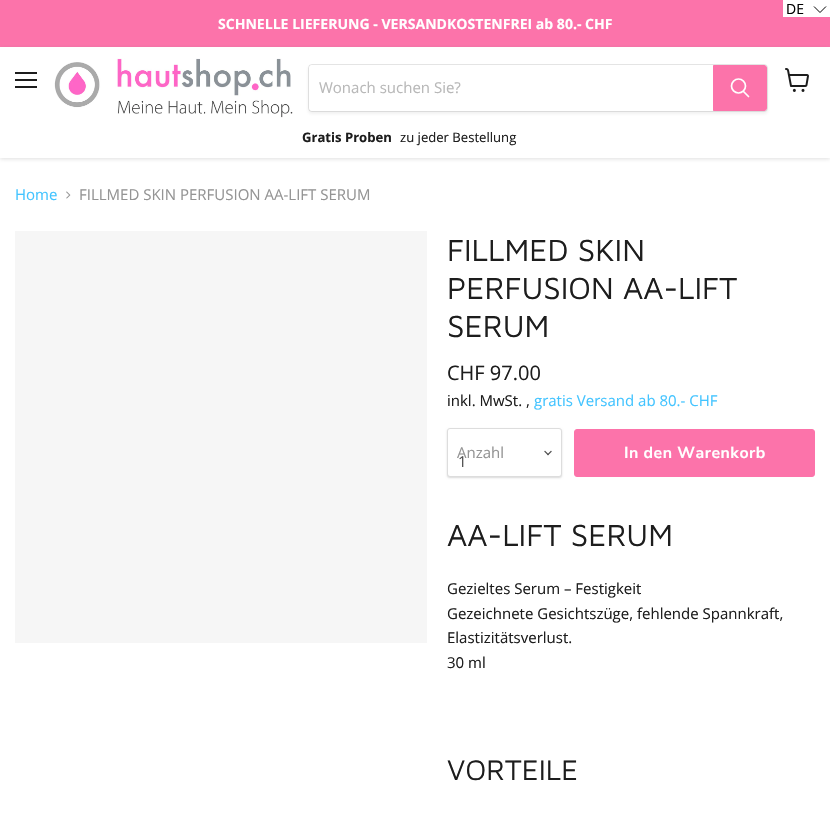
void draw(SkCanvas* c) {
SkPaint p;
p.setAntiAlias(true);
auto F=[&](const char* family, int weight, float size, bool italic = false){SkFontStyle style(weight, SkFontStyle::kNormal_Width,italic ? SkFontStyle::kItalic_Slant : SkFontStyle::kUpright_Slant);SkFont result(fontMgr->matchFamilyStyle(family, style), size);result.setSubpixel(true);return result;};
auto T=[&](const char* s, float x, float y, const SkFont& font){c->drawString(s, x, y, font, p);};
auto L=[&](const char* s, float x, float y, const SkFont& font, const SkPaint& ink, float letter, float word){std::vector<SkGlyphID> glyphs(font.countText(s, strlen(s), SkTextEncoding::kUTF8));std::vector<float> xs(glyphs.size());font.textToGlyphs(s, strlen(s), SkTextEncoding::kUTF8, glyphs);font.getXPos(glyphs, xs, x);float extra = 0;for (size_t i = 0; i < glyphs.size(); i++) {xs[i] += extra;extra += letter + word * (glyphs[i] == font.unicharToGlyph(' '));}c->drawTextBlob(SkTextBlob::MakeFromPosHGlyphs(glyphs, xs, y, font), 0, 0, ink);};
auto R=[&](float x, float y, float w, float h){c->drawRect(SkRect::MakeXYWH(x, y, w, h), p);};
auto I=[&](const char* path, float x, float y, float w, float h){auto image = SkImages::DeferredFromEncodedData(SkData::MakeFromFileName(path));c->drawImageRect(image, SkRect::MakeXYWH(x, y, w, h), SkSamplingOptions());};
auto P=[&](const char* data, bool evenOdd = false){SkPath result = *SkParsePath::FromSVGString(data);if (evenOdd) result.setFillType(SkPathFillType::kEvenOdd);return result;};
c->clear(0xffffffff);
p.setColor(0xfffc73aa);
R(0,0,830,47);
p.setColor(0xffffffff);
R(783,0,47,17);
auto f1 = F("Open Sans",400,14);
p.setColor(0xff000000);
T("DE",786,14,f1);
p.setStroke(true);
p.setStrokeWidth(1);
c->drawPath(P("M814 6.5l6 6l6-6"),p);
auto f2 = F("Open Sans",700,14.05);
p.setStroke(false);
p.setColor(0xffffffff);
T("SCHNELLE LIEFERUNG - VERSANDKOSTENFREI ab 80.- CHF",218,29,f2);
p.setColor(0x40808080);
p.setMaskFilter(SkMaskFilter::MakeBlur(kNormal_SkBlurStyle, 2));
c->drawRect(SkRect::MakeXYWH(0,48,830,111),p);
p.setMaskFilter(nullptr);
p.setColor(0xffffffff);
R(0,47,830,111);
p.setColor(0xff1d1d1d);
R(15,72,22,2);
R(15,79,22,2);
R(15,86,22,2);
I("1.png",54,58,239,60);
p.setColor(0x1c808080);
p.setMaskFilter(SkMaskFilter::MakeBlur(kNormal_SkBlurStyle, 1.5));
c->drawRoundRect(SkRect::MakeXYWH(308,66,460,48),4,4,p);
p.setMaskFilter(nullptr);
p.setStroke(true);
p.setColor(0x33808080);
c->drawRoundRect(SkRect::MakeXYWH(308.5,64.5,459,47),3.5,3.5,p);
p.setStroke(false);
p.setColor(0xffffffff);
c->drawPath(P("M312 65h401v46h-401c-1.5 0-3-1.5-3-3v-40c0-1.5 1.5-3 3-3z"),p);
auto f3 = F("Open Sans",400,15);
p.setColor(0xffb8b8b8);
T("Wonach suchen Sie?",319,93,f3);
p.setColor(0xfffc73aa);
c->drawPath(P("M713.5 65.5h50.5c1.5 0 2.5 1 2.5 2.5v40c0 1.5-1 2.5-2.5 2.5h-50.5z"),p);
p.setStroke(true);
c->drawPath(P("M713.5 65.5h50.5c1.5 0 2.5 1 2.5 2.5v40c0 1.5-1 2.5-2.5 2.5h-50.5z"),p);
p.setStrokeWidth(1.7);
p.setStrokeCap(SkPaint::kRound_Cap);
p.setColor(0xffffffff);
c->drawPath(P("M748.5 96.5l-5-5"),p);
p.setStrokeCap(SkPaint::kButt_Cap);
c->drawCircle(738.5,86,7,p);
auto f4 = F("Open Sans",700,13.1);
p.setStroke(false);
p.setColor(0xff1d1d1d);
T("Gratis Proben",302,142,f4);
auto f5 = F("Open Sans",400,13.1);
T("zu jeder Bestellung",400,142,f5);
I("2.png",785,68,24,24);
p.setColor(0xff43c4ff);
T("Home",15,200,f3);
I("3.png",66,191,5,8);
p.setColor(0xff949494);
T("FILLMED SKIN PERFUSION AA-LIFT SERUM",79,200,f3);
p.setColor(0xfff6f6f6);
R(15,231,412,412);
auto f6 = F("Maven Pro",400,31.5);
p.setColor(0xff1d1d1d);
T("FILLMED SKIN",447,261,f6);
T("PERFUSION AA-LIFT",447,299,f6);
T("SERUM",447,337,f6);
auto f7 = F("Open Sans",400,20);
T("CHF 97.00",447,380,f7);
T("inkl. MwSt. ,",447,406,f3);
p.setColor(0xff43c4ff);
T("gratis Versand ab 80.- CHF",534,406,f3);
p.setColor(0x26000000);
p.setMaskFilter(SkMaskFilter::MakeBlur(kNormal_SkBlurStyle, 1));
c->drawRoundRect(SkRect::MakeXYWH(447,429,115,49),3,3,p);
p.setMaskFilter(nullptr);
p.setColor(0xffffffff);
c->drawRoundRect(SkRect::MakeXYWH(447.5,428.5,114,48),2.5,2.5,p);
p.setStroke(true);
p.setStrokeWidth(1);
p.setColor(0xffdddddd);
c->drawRoundRect(SkRect::MakeXYWH(447.5,428.5,114,48),2.5,2.5,p);
p.setStroke(false);
p.setColor(0xff949494);
T("Anzahl",457,458,f3);
I("4.png",544,450,8,6);
p.setColor(0xff4d4d4d);
T("1",458,467,f3);
p.setColor(0xfffc73aa);
c->drawRoundRect(SkRect::MakeXYWH(574.5,429.5,240,47),2.5,2.5,p);
p.setStroke(true);
c->drawRoundRect(SkRect::MakeXYWH(574.5,429.5,240,47),2.5,2.5,p);
auto f8 = F("Nunito Sans",700,15.9);
p.setStroke(false);
p.setColor(0xffffffff);
L("In den Warenkorb",624,458,f8,p,.5,0);
p.setColor(0xff1d1d1d);
T("AA-LIFT SERUM",447,546,f6);
T("Gezieltes Serum – Festigkeit",447,594,f3);
T("Gezeichnete Gesichtszüge, fehlende Spannkraft,",447,619,f3);
T("Elastizitätsverlust.",447,643,f3);
T("30 ml",447,668,f3);
auto f9 = F("Maven Pro",400,29.25);
T("VORTEILE",447,780,f9);
}
